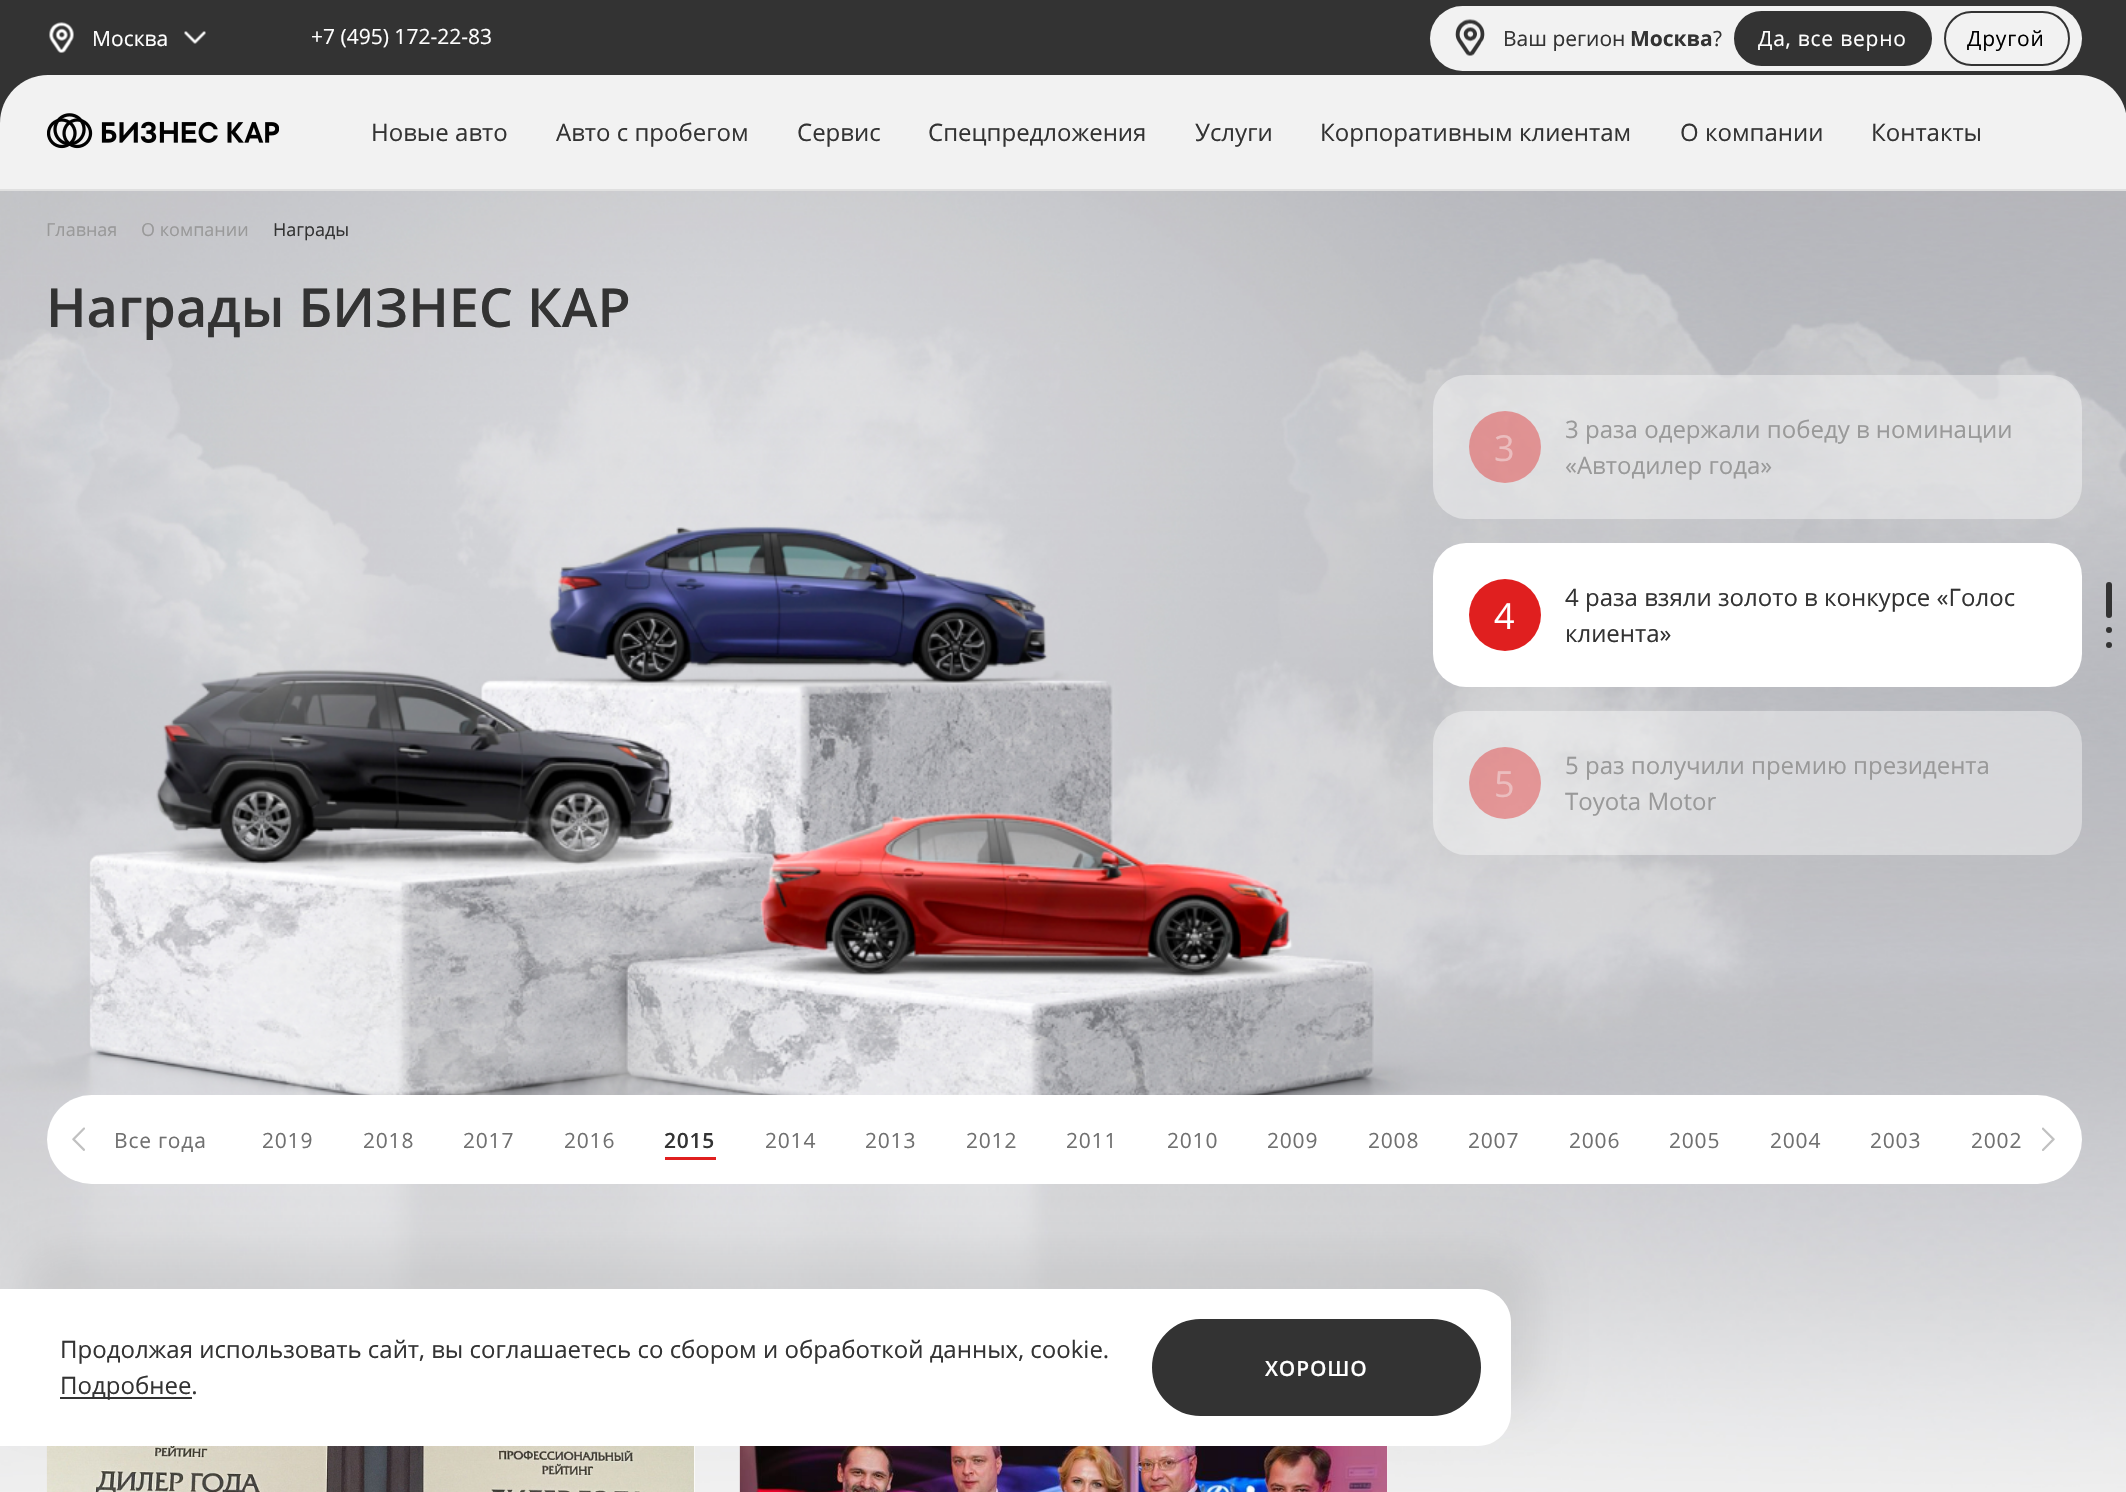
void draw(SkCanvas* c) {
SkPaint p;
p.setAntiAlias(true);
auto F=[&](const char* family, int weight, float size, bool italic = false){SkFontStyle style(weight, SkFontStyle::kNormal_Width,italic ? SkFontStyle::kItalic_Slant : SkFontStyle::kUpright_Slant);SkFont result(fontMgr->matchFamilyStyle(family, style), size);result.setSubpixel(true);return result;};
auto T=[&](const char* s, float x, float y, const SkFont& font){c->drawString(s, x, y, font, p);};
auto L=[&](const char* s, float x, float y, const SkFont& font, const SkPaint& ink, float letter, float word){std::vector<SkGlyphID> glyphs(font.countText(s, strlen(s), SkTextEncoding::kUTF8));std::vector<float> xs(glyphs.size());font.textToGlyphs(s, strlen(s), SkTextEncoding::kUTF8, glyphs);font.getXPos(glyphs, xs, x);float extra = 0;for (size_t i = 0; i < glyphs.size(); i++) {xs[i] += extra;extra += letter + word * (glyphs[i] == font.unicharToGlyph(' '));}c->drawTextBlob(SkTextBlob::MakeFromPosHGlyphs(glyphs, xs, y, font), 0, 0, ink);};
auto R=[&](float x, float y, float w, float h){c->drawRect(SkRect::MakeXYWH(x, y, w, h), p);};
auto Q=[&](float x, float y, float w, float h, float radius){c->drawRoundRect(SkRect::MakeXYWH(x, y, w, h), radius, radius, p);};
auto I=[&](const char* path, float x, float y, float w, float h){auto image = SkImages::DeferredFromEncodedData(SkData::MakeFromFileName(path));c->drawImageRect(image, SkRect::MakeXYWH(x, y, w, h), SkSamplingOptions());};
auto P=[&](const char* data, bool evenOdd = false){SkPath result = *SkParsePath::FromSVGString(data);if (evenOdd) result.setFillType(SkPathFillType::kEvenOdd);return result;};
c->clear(0xffffffff);
p.setColor(0xff333333);
R(0,0,2126,123);
p.setColor(0xffe0e0e0);
R(0,189,2126,2);
I("1.png",49,22,25,31);
auto f1 = F("Open Sans",400,21);
p.setColor(0xffffffff);
T("Москва",92,46,f1);
I("2.png",184,31,22,13);
T("+7 (495) 172-22-83",311,44,f1);
p.setColor(0xfff2f2f2);
Q(1430,6,652,65,32.5);
I("3.png",1455,19,30,37);
p.setColor(0xff333333);
T("Ваш регион",1503,46,f1);
auto f2 = F("Open Sans",700,21);
T("Москва",1630,46,f2);
T("?",1713,46,f1);
c->drawRoundRect(SkRect::MakeXYWH(1735,12,196,53),26.5,26.5,p);
p.setStroke(true);
p.setStrokeWidth(2);
c->drawRoundRect(SkRect::MakeXYWH(1735,12,196,53),26.5,26.5,p);
p.setStroke(false);
p.setColor(0xffffffff);
L("Да, все верно",1758,46,f1,p,.8,0);
p.setStroke(true);
p.setColor(0xff333333);
c->drawRoundRect(SkRect::MakeXYWH(1945,12,124,53),26.5,26.5,p);
p.setStroke(false);
p.setColor(0xff000000);
L("Другой",1967,46,f1,p,.8,0);
p.setColor(0xfff2f2f2);
c->drawPath(P("M48 75h2031c26.5 0 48 21.5 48 48v66h-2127v-66c0-26.5 21.5-48 48-48z"),p);
I("4.png",47,113,232,36);
auto f3 = F("Open Sans",400,24);
p.setColor(0xff333333);
T("Новые авто",371,141,f3);
T("Авто с пробегом",556,141,f3);
T("Сервис",797,141,f3);
T("Спецпредложения",928,141,f3);
T("Услуги",1195,141,f3);
T("Корпоративным клиентам",1320,141,f3);
T("О компании",1680,141,f3);
T("Контакты",1871,141,f3);
I("5.png",0,191,2126,1301);
auto f4 = F("Open Sans",400,18);
p.setColor(0xff999999);
T("Главная",46,236,f4);
T("О компании",141,236,f4);
p.setColor(0xff333333);
T("Награды",273,236,f4);
auto f5 = F("Open Sans",600,54);
T("Награды БИЗНЕС КАР",46,327,f5);
p.setColor(0x66ffffff);
Q(1433,375,649,144,33);
p.setColor(0x66e01f1f);
c->drawCircle(1505,447,36,p);
auto f6 = F("Open Sans",400,36);
p.setColor(0xffebbdbe);
T("3",1494,461,f6);
p.setColor(0xff999999);
T("3 раза одержали победу в номинации",1565,438,f3);
T("«Автодилер года»",1565,474,f3);
p.setColor(0xffffffff);
Q(1433,543,649,144,33);
p.setColor(0xffe01f1f);
c->drawCircle(1505,615,36,p);
p.setColor(0xffffffff);
T("4",1494,629,f6);
p.setColor(0xff333333);
T("4 раза взяли золото в конкурсе «Голос",1565,606,f3);
T("клиента»",1565,642,f3);
p.setColor(0x66ffffff);
Q(1433,711,649,144,33);
p.setColor(0x66e01f1f);
c->drawCircle(1505,783,36,p);
p.setColor(0xffebbdbe);
T("5",1494,797,f6);
p.setColor(0xff999999);
T("5 раз получили премию президента",1565,774,f3);
T("Toyota Motor",1565,810,f3);
p.setColor(0xff333333);
Q(2106,582,6,36,3);
c->drawCircle(2109,630,3,p);
c->drawCircle(2109,645,3,p);
p.setColor(0xffffffff);
Q(47,1095,2035,89,44.5);
I("6.png",72,1127,13,24);
p.setColor(0xff707070);
L("Все года",114,1148,f1,p,.8,0);
L("2019",262,1148,f1,p,.8,0);
L("2018",363,1148,f1,p,.8,0);
L("2017",463,1148,f1,p,.8,0);
L("2016",564,1148,f1,p,.8,0);
auto f7 = F("Open Sans",600,21);
p.setColor(0xff333333);
L("2015",664,1148,f7,p,.8,0);
p.setColor(0xffe01f1f);
R(665,1157,51,3);
p.setColor(0xff707070);
L("2014",765,1148,f1,p,.8,0);
L("2013",865,1148,f1,p,.8,0);
L("2012",966,1148,f1,p,.8,0);
L("2011",1066,1148,f1,p,.8,0);
L("2010",1167,1148,f1,p,.8,0);
L("2009",1267,1148,f1,p,.8,0);
L("2008",1368,1148,f1,p,.8,0);
L("2007",1468,1148,f1,p,.8,0);
L("2006",1569,1148,f1,p,.8,0);
L("2005",1669,1148,f1,p,.8,0);
L("2004",1770,1148,f1,p,.8,0);
L("2003",1870,1148,f1,p,.8,0);
L("2002",1971,1148,f1,p,.8,0);
I("7.png",2042,1127,13,24);
p.setColor(0xffffffff);
R(694,1446,1,46);
I("8.png",46,1446,649,46);
R(1387,1446,1,46);
I("9.png",739,1446,649,46);
p.setColor(0x14000000);
p.setMaskFilter(SkMaskFilter::MakeBlur(kNormal_SkBlurStyle, 22.5));
c->drawRoundRect(SkRect::MakeXYWH(24,1250,1511,157),33,33,p);
p.setMaskFilter(nullptr);
p.setColor(0xffffffff);
c->drawPath(P("M0 1289h1478c18 0 33 15 33 33v91c0 18-15 33-33 33h-1478z"),p);
p.setColor(0xff333333);
T("Продолжая использовать сайт, вы соглашаетесь со сбором и обработкой данных, cookie.",60,1358,f3);
R(60,1397,132,2);
T("Подробнее.",60,1394,f3);
c->drawRoundRect(SkRect::MakeXYWH(1153,1320,327,95),47.5,47.5,p);
p.setStroke(true);
c->drawRoundRect(SkRect::MakeXYWH(1153,1320,327,95),47.5,47.5,p);
p.setStroke(false);
p.setColor(0xffffffff);
L("ХОРОШО",1265,1376,f7,p,.8,0);
}
